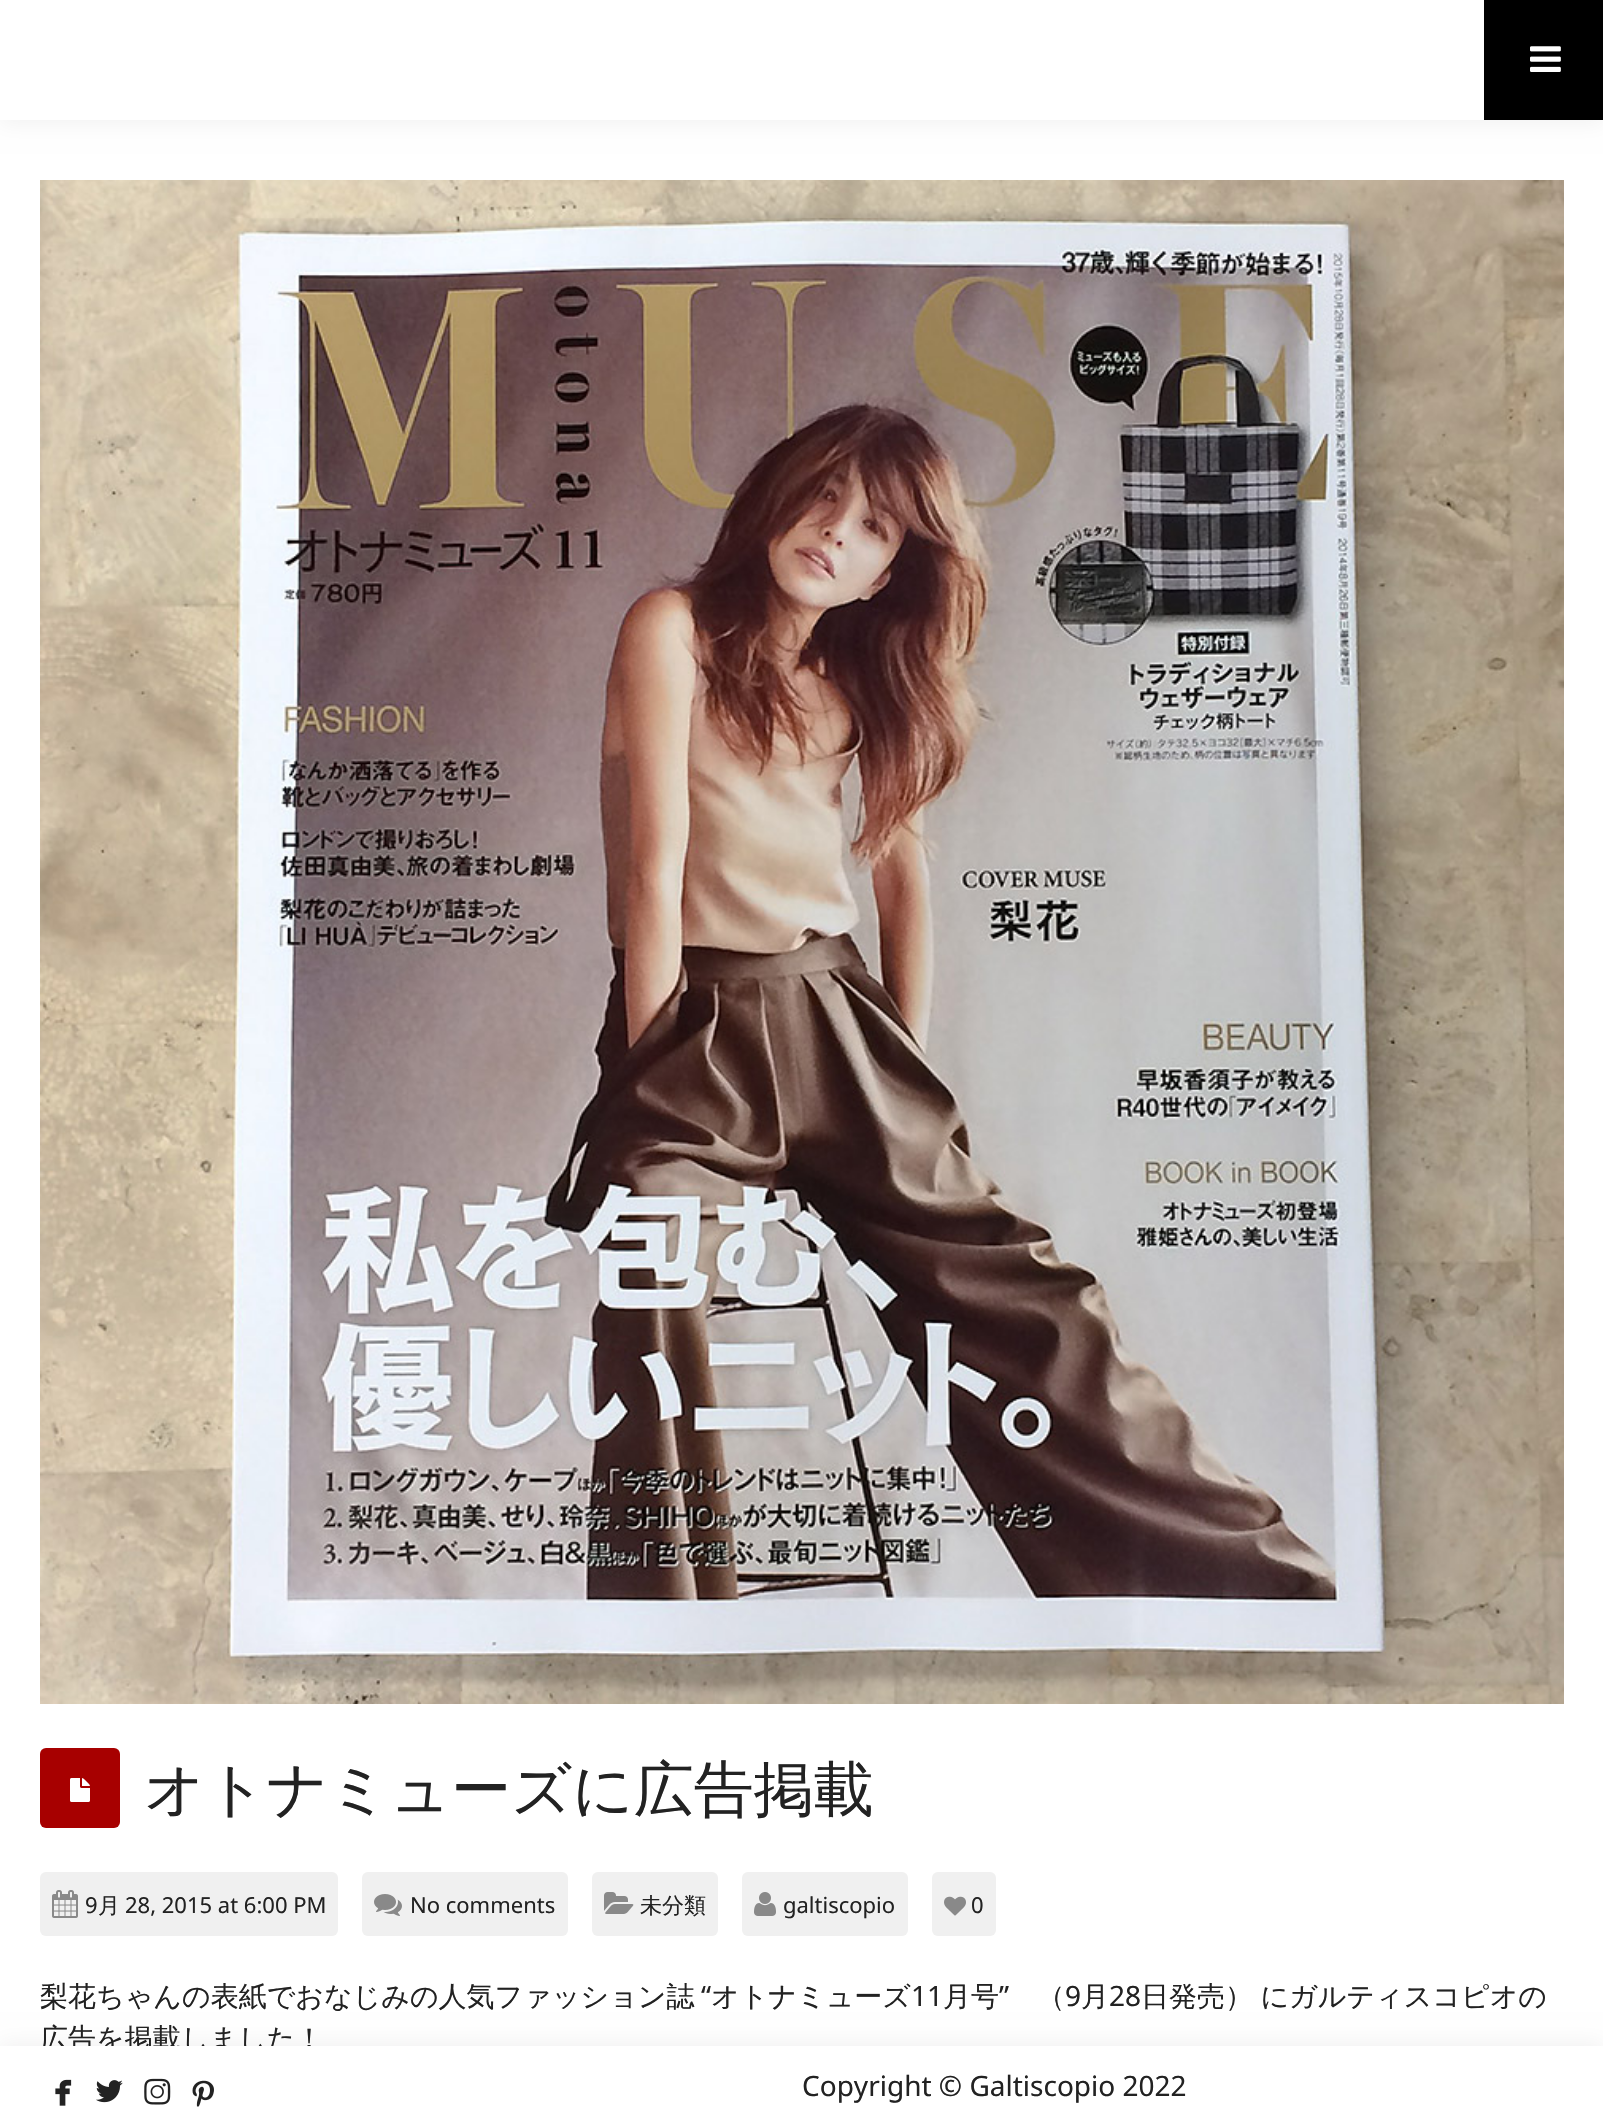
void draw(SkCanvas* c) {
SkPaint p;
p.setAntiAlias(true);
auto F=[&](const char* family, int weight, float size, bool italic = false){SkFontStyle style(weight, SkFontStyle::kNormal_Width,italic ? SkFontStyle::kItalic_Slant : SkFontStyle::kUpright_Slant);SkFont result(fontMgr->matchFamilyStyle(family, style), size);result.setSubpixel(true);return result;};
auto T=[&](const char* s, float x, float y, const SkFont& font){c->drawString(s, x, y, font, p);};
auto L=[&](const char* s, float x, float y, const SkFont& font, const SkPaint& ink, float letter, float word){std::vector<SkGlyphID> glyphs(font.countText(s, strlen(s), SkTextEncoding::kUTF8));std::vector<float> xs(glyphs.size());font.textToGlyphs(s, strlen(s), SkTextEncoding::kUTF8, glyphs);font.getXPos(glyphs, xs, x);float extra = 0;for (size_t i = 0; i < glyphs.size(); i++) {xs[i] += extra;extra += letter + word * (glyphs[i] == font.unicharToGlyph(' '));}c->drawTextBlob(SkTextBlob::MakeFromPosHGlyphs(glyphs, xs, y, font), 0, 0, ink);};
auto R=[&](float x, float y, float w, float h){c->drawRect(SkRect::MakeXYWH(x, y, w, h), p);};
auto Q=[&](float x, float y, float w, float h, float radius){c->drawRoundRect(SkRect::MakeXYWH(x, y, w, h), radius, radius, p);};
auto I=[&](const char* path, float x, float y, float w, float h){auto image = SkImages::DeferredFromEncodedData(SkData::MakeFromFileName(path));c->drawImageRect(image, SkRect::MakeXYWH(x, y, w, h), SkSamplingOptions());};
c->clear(0xffffffff);
p.setColor(0x0d000000);
p.setMaskFilter(SkMaskFilter::MakeBlur(kNormal_SkBlurStyle, 10));
c->drawRect(SkRect::MakeXYWH(0,4,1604,120),p);
p.setMaskFilter(nullptr);
p.setColor(0xffffffff);
R(0,0,1484,120);
p.setColor(0xff000000);
R(1484,0,119,120);
I("1.png",1530,46,31,26);
I("2.png",40,180,1524,1524);
p.setColor(0xffa70000);
Q(40,1748,80,80,6);
I("3.png",70,1778,20,24);
auto f1 = F("WenQuanYi Zen Hei",500,60);
p.setColor(0xff222222);
T("オトナミューズに広告掲載",144,1810,f1);
p.setColor(0xfff0f0f0);
Q(40,1872,298,64,6);
I("4.png",52,1890,26,28);
auto f2 = F("Noto Sans",400,22);
p.setColor(0xff222222);
T("9",85,1913,f2);
auto f3 = F("WenQuanYi Zen Hei",500,22);
T("月",98,1913,f3);
T("28, 2015 at 6:00 PM",125,1913,f2);
p.setColor(0xfff0f0f0);
Q(362,1872,206,64,6);
I("5.png",374,1894,28,22);
p.setColor(0xff222222);
T("No comments",410,1913,f2);
p.setColor(0xfff0f0f0);
Q(592,1872,126,64,6);
I("6.png",604,1892,30,22);
p.setColor(0xff222222);
T("未分類",640,1913,f3);
p.setColor(0xfff0f0f0);
Q(742,1872,166,64,6);
I("7.png",754,1892,22,24);
p.setColor(0xff222222);
T("galtiscopio",783,1913,f2);
p.setColor(0xfff0f0f0);
Q(932,1872,64,64,6);
I("8.png",944,1896,22,20);
p.setColor(0xff222222);
T("0",971,1913,f2);
auto f4 = F("WenQuanYi Zen Hei",500,28);
T("梨花ちゃんの表紙でおなじみの人気ファッション誌",40,2006,f4);
auto f5 = F("Noto Sans",400,28);
T("“",701,2006,f5);
T("オトナミューズ",711,2006,f4);
T("11",911,2006,f5);
T("月号",943,2006,f4);
T("”",999,2006,f5);
T("（",1037,2006,f4);
T("9",1065,2006,f5);
T("月",1081,2006,f4);
T("28",1109,2006,f5);
L("日発売） にガルティスコピオの",1141,2006,f4,p,0,-1);
T("広告を掲載しました！",40,2048,f4);
p.setColor(0x0d000000);
p.setMaskFilter(SkMaskFilter::MakeBlur(kNormal_SkBlurStyle, 10));
c->drawRect(SkRect::MakeXYWH(0,2042,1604,80),p);
p.setMaskFilter(nullptr);
p.setColor(0xffffffff);
R(0,2046,1603,80);
I("9.png",55,2079,17,27);
I("10.png",96,2080,27,23);
I("11.png",144,2078,27,27);
I("12.png",192,2080,22,27);
p.setColor(0xff222222);
T("Copyright © Galtiscopio 2022",802,2096,f5);
}
